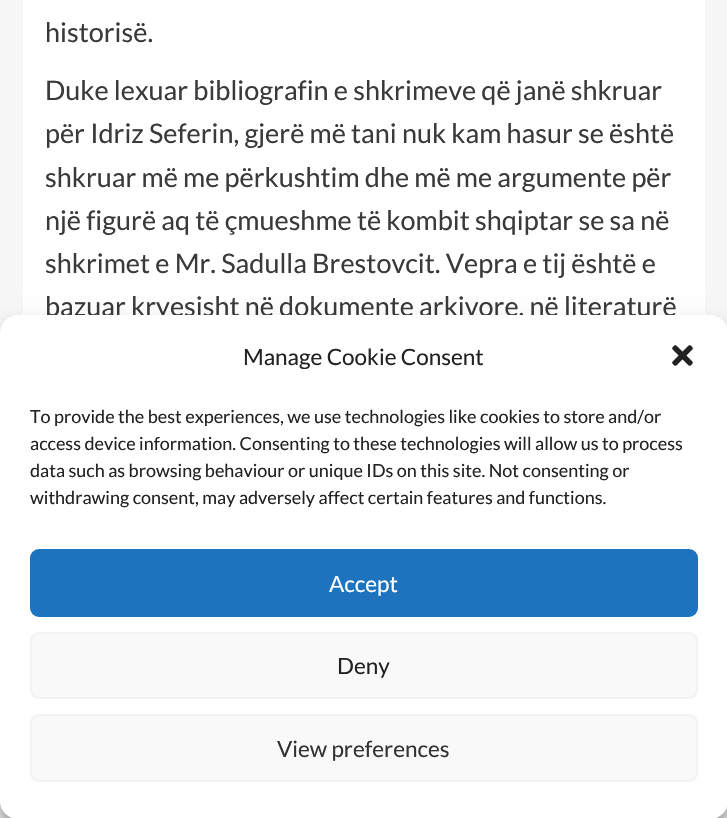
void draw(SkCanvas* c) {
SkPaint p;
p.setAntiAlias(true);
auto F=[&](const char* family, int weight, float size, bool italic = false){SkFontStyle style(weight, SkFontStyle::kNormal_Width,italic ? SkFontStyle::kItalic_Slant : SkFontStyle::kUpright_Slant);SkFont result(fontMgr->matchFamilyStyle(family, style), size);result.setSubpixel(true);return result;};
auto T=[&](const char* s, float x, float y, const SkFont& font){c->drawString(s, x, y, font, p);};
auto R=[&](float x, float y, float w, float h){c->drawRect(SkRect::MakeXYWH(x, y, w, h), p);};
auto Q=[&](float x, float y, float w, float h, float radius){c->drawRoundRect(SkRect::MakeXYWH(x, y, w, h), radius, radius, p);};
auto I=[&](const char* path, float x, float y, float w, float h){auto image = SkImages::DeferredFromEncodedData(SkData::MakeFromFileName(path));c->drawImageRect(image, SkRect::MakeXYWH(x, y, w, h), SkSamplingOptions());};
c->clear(0xfff7f7f7);
p.setColor(0xffffffff);
R(23,0,682,315);
auto f1 = F("Lato",400,27);
p.setColor(0xff3a3a3a);
T("historisë.",45,42,f1);
T("Duke lexuar bibliografin e shkrimeve që janë shkruar",45,100,f1);
T("për Idriz Seferin, gjerë më tani nuk kam hasur se është",45,143,f1);
T("shkruar më me përkushtim dhe më me argumente për",45,187,f1);
T("një figurë aq të çmueshme të kombit shqiptar se sa në",45,230,f1);
T("shkrimet e Mr. Sadulla Brestovcit. Vepra e tij është e",45,273,f1);
T("bazuar kryesisht në dokumente arkivore, në literaturë",45,316,f1);
p.setColor(0x3b000000);
p.setMaskFilter(SkMaskFilter::MakeBlur(kNormal_SkBlurStyle, 4.5));
c->drawRoundRect(SkRect::MakeXYWH(0,324,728,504),18,18,p);
p.setMaskFilter(nullptr);
p.setColor(0x30000000);
p.setMaskFilter(SkMaskFilter::MakeBlur(kNormal_SkBlurStyle, 15));
c->drawRoundRect(SkRect::MakeXYWH(0,330,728,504),18,18,p);
p.setMaskFilter(nullptr);
p.setColor(0xffffffff);
Q(0,315,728,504,18);
auto f2 = F("Lato",400,22.5);
p.setColor(0xff222222);
T("Manage Cookie Consent",243,365,f2);
I("1.png",672,345,21,21);
auto f3 = F("Lato",400,18);
T("To provide the best experiences, we use technologies like cookies to store and/or",30,423,f3);
T("access device information. Consenting to these technologies will allow us to process",30,450,f3);
T("data such as browsing behaviour or unique IDs on this site. Not consenting or",30,477,f3);
T("withdrawing consent, may adversely affect certain features and functions.",30,504,f3);
p.setColor(0xff1e73be);
c->drawRoundRect(SkRect::MakeXYWH(31,550,666,66),8,8,p);
p.setStroke(true);
p.setStrokeWidth(2);
c->drawRoundRect(SkRect::MakeXYWH(31,550,666,66),8,8,p);
p.setStroke(false);
p.setColor(0xffffffff);
T("Accept",329,592,f2);
p.setColor(0xfff9f9f9);
c->drawRoundRect(SkRect::MakeXYWH(31,633,666,65),8,8,p);
p.setStroke(true);
p.setColor(0xfff2f2f2);
c->drawRoundRect(SkRect::MakeXYWH(31,633,666,65),8,8,p);
p.setStroke(false);
p.setColor(0xff222222);
T("Deny",337,674,f2);
p.setColor(0xfff9f9f9);
c->drawRoundRect(SkRect::MakeXYWH(31,715,666,66),8,8,p);
p.setStroke(true);
p.setColor(0xfff2f2f2);
c->drawRoundRect(SkRect::MakeXYWH(31,715,666,66),8,8,p);
p.setStroke(false);
p.setColor(0xff333333);
T("View preferences",277,757,f2);
}
